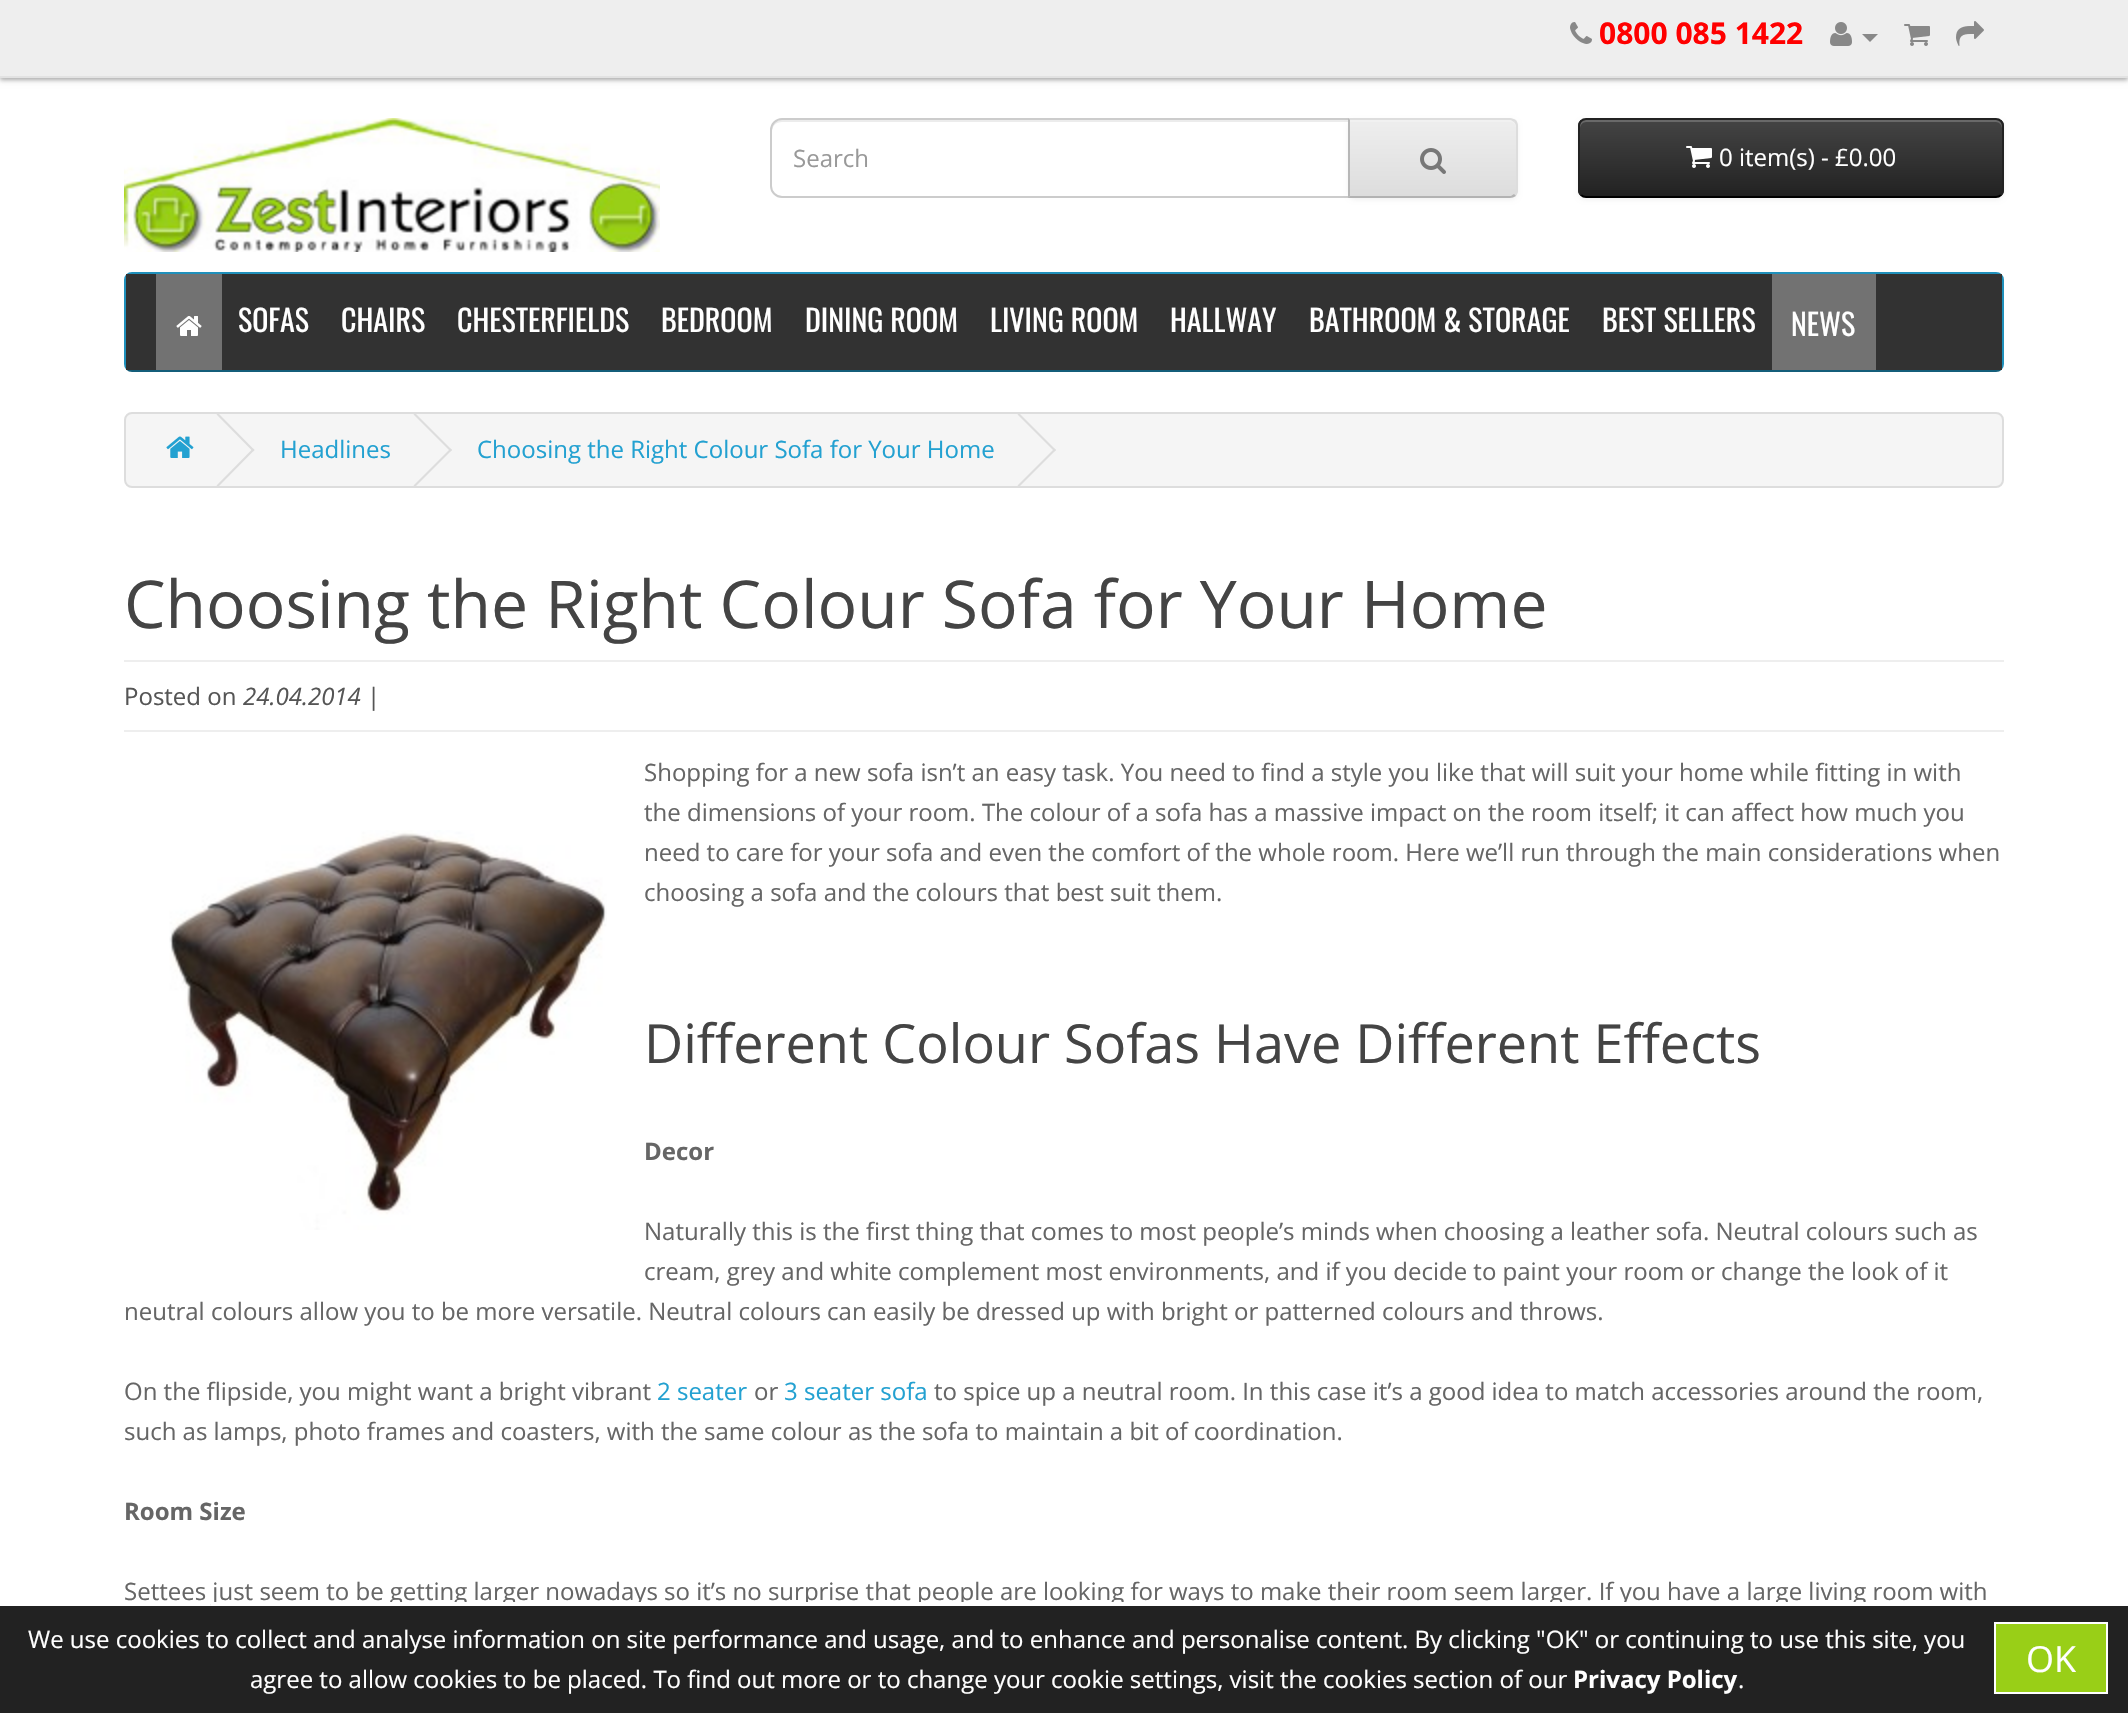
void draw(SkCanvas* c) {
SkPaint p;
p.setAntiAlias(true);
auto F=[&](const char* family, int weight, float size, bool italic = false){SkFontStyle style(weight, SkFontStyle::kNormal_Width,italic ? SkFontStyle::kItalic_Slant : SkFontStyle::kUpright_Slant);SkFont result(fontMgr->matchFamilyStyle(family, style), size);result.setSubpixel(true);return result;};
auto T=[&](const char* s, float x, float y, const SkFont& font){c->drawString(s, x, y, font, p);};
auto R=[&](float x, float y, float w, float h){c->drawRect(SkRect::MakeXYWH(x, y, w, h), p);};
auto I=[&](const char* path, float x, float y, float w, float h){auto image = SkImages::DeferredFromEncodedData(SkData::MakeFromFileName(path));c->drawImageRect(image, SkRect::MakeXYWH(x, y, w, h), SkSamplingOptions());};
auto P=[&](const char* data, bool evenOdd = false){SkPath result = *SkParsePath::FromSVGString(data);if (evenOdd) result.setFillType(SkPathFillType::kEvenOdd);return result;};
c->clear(0xffffffff);
p.setColor(0x3d000000);
p.setMaskFilter(SkMaskFilter::MakeBlur(kNormal_SkBlurStyle, 2));
c->drawRect(SkRect::MakeXYWH(0,2,2128,78),p);
p.setMaskFilter(nullptr);
p.setColor(0x1f000000);
p.setMaskFilter(SkMaskFilter::MakeBlur(kNormal_SkBlurStyle, 3));
c->drawRect(SkRect::MakeXYWH(0,2,2128,78),p);
p.setMaskFilter(nullptr);
p.setColor(0xffeeeeee);
R(0,0,2128,76);
p.setColor(0xffe2e2e2);
R(0,76,2128,2);
I("1.png",1570,22,22,22);
auto f1 = F("Open Sans",700,30);
p.setColor(0xffff0000);
T("0800 085 1422",1599,44,f1);
I("2.png",1830,22,22,24);
p.setColor(0xff888888);
c->drawPath(P("M1862 34h16l-8 8z"),p);
I("3.png",1904,24,26,22);
I("4.png",1956,21,28,25);
I("5.png",124,118,536,134);
p.setColor(0xffececec);
c->drawPath(P("M782 122h566v-2h-566c-6 0-10 4-10 10v2c0-6 4-10 10-10z"),p);
p.setStroke(true);
p.setStrokeWidth(2);
p.setColor(0xffcccccc);
c->drawPath(P("M782 119h567v78h-567c-6 0-11-5-11-11v-56c0-6 5-11 11-11z"),p);
auto f2 = F("Open Sans",400,24);
p.setStroke(false);
p.setColor(0xff999999);
T("Search",793,167,f2);
p.setColor(0x0d000000);
p.setMaskFilter(SkMaskFilter::MakeBlur(kNormal_SkBlurStyle, 2));
c->drawRoundRect(SkRect::MakeXYWH(1348,120,170,80),8,8,p);
p.setMaskFilter(nullptr);
c->save();
c->clipPath(P("M1348 118h162c4.5 0 8 3.5 8 8v64c0 4.5-3.5 8-8 8h-162z"),true);
{
const SkColor colors[] = {0xffeeeeee,0xffdddddd};
const float stops[] = {0,1};
const SkPoint ends[] = {{1433,120}, {1433,196}};
p.setShader(SkGradientShader::MakeLinear(ends, colors, stops, 2, SkTileMode::kClamp));
p.setAlpha(255);
}
R(1350,120,168,76);
c->restore();
p.setShader(nullptr);
p.setColor(0xfff1f1f1);
c->drawPath(P("M1350 122h160c3 0 6 3 6 6v-2c0-3-3-6-6-6h-160z"),p);
p.setColor(0xffdddddd);
c->drawPath(P("M1348 118l2 2h161l3 2l2-2c-2-1-4-2-6-2z"),p);
c->drawPath(P("M1518 190v-64c0-2-1-4-2-6l-2 2c1 1 2 2 2 4v64c0 2-1 3-2 4l2 2c1-2 2-4 2-6z"),p);
p.setColor(0xffb3b3b3);
c->drawPath(P("M1510 198c2 0 4-1 6-2l-2-2l-3 2h-161l-2 2z"),p);
p.setColor(0xffb7b7b7);
c->drawPath(P("M1348 118v80l2-2v-76z"),p);
I("6.png",1420,148,26,26);
p.setColor(0x0d000000);
p.setMaskFilter(SkMaskFilter::MakeBlur(kNormal_SkBlurStyle, 2));
c->drawRoundRect(SkRect::MakeXYWH(1578,120,426,80),8,8,p);
p.setMaskFilter(nullptr);
c->save();
c->clipPath(P("M1586 118h410c4.5 0 8 3.5 8 8v64c0 4.5-3.5 8-8 8h-410c-4.5 0-8-3.5-8-8v-64c0-4.5 3.5-8 8-8z"),true);
{
const SkColor colors[] = {0xff444444,0xff222222};
const float stops[] = {0,1};
const SkPoint ends[] = {{1791,120}, {1791,196}};
p.setShader(SkGradientShader::MakeLinear(ends, colors, stops, 2, SkTileMode::kClamp));
p.setAlpha(255);
}
R(1578,120,426,76);
c->restore();
p.setShader(nullptr);
p.setColor(0xff696969);
c->drawPath(P("M1586 122h410c3 0 6 3 6 6v-2c0-3-3-6-6-6h-410c-3 0-6 3-6 6v2c0-3 3-6 6-6z"),p);
p.setStroke(true);
p.setColor(0xff000000);
c->drawPath(P("M2001 195c-1.5 1.5-3 2-5 2h-410c-2 0-3.5-.5-5-2"),p);
p.setColor(0xff222222);
c->drawPath(P("M1581 195c-1.5-1.5-2-3-2-5v-64c0-2 .5-3.5 2-5c1.5-1.5 3-2 5-2h410c2 0 3.5 .5 5 2c1.5 1.5 2 3 2 5v64c0 2-.5 3.5-2 5"),p);
I("7.png",1686,146,26,22);
p.setStroke(false);
p.setColor(0xffffffff);
T("0 item(s) - £0.00",1719,166,f2);
p.setStroke(true);
p.setColor(0xff145e7a);
c->drawPath(P("M2001 369c-1.5 1.5-3 2-5 2h-1864c-2 0-3.5-.5-5-2"),p);
p.setColor(0xff1f90bb);
c->drawPath(P("M127 369c-1.5-1.5-2-3-2-5v-84c0-2 .5-3.5 2-5c1.5-1.5 3-2 5-2h1864c2 0 3.5 .5 5 2c1.5 1.5 2 3 2 5v84c0 2-.5 3.5-2 5"),p);
p.setStroke(false);
p.setColor(0xff323232);
R(126,274,1876,96);
p.setColor(0xff727272);
R(156,274,66,96);
I("8.png",176,316,26,20);
auto f3 = F("Oswald",400,30);
p.setColor(0xffffffff);
T("SOFAS",238,332,f3);
T("CHAIRS",341,332,f3);
T("CHESTERFIELDS",457,332,f3);
T("BEDROOM",661,332,f3);
T("DINING ROOM",805,332,f3);
T("LIVING ROOM",990,332,f3);
T("HALLWAY",1170,332,f3);
T("BATHROOM & STORAGE",1309,332,f3);
T("BEST SELLERS",1602,332,f3);
p.setColor(0xff727272);
R(1772,274,104,96);
p.setColor(0xffffffff);
T("NEWS",1791,336,f3);
p.setColor(0xfff5f5f5);
c->drawRoundRect(SkRect::MakeXYWH(125,413,1878,74),7,7,p);
p.setStroke(true);
p.setColor(0xffdddddd);
c->drawRoundRect(SkRect::MakeXYWH(125,413,1878,74),7,7,p);
I("9.png",166,436,28,22);
p.setStroke(false);
c->drawPath(P("M216.5 414.5l36.5 37l1.5-1.5l-35.5-36h-2z"),p);
c->drawPath(P("M216.5 485.5l36.5-37l1.5 1.5l-35.5 36h-2z"),p);
p.setColor(0xff23a1d1);
T("Headlines",280,458,f2);
p.setColor(0xffdddddd);
c->drawPath(P("M413.5 414.5l37 37l1.5-1.5l-36-36h-2z"),p);
c->drawPath(P("M413.5 485.5l37-37l1.5 1.5l-36 36h-2z"),p);
p.setColor(0xff23a1d1);
T("Choosing the Right Colour Sofa for Your Home",477,458,f2);
p.setColor(0xffdddddd);
c->drawPath(P("M1017.5 414.5l37 37l1.5-1.5l-36-36h-2z"),p);
c->drawPath(P("M1017.5 485.5l37-37l1.5 1.5l-36 36h-2z"),p);
auto f4 = F("Open Sans",400,66);
p.setColor(0xff444444);
T("Choosing the Right Colour Sofa for Your Home",124,628,f4);
p.setColor(0xffeeeeee);
R(124,660,1880,2);
R(124,730,1880,2);
p.setColor(0xff555555);
T("Posted on",124,705,f2);
auto f5 = F("Open Sans",400,24,true);
T("24.04.2014",243,705,f5);
T("|",367,705,f2);
I("10.png",169,830,438,400);
p.setColor(0xff666666);
T("Shopping for a new sofa isn’t an easy task. You need to find a style you like that will suit your home while fitting in with",644,781,f2);
T("the dimensions of your room. The colour of a sofa has a massive impact on the room itself; it can affect how much you",644,821,f2);
T("need to care for your sofa and even the comfort of the whole room. Here we’ll run through the main considerations when",644,861,f2);
T("choosing a sofa and the colours that best suit them.",644,901,f2);
auto f6 = F("Open Sans",400,54);
p.setColor(0xff444444);
T("Different Colour Sofas Have Different Effects",644,1063,f6);
auto f7 = F("Open Sans",700,24);
p.setColor(0xff666666);
T("Decor",644,1160,f7);
T("Naturally this is the first thing that comes to most people’s minds when choosing a leather sofa. Neutral colours such as",644,1240,f2);
T("cream, grey and white complement most environments, and if you decide to paint your room or change the look of it",644,1280,f2);
T("neutral colours allow you to be more versatile. Neutral colours can easily be dressed up with bright or patterned colours and throws.",124,1320,f2);
T("On the flipside, you might want a bright vibrant",124,1400,f2);
p.setColor(0xff23a1d1);
T("2 seater",657,1400,f2);
p.setColor(0xff666666);
T("or",754,1400,f2);
p.setColor(0xff23a1d1);
T("3 seater sofa",784,1400,f2);
p.setColor(0xff666666);
T("to spice up a neutral room. In this case it’s a good idea to match accessories around the room,",934,1400,f2);
T("such as lamps, photo frames and coasters, with the same colour as the sofa to maintain a bit of coordination.",124,1440,f2);
T("Room Size",124,1520,f7);
T("Settees just seem to be getting larger nowadays so it’s no surprise that people are looking for ways to make their room seem larger. If you have a large living room with",124,1600,f2);
p.setColor(0xff222222);
R(0,1606,2128,107);
p.setColor(0xffffffff);
R(211,1602,1655,4);
T("We use cookies to collect and analyse information on site performance and usage, and to enhance and personalise content. By clicking \"OK\" or continuing to use this site, you",28,1648,f2);
p.setColor(0xff99cf17);
c->drawRect(SkRect::MakeXYWH(1995,1623,112,70),p);
p.setStroke(true);
p.setColor(0xffffffff);
c->drawRect(SkRect::MakeXYWH(1995,1623,112,70),p);
auto f8 = F("Open Sans",400,36);
p.setStroke(false);
T("OK",2026,1672,f8);
T("agree to allow cookies to be placed. To find out more or to change your cookie settings, visit the cookies section of our",250,1688,f2);
T("Privacy Policy",1573,1688,f7);
T(".",1738,1688,f2);
}
